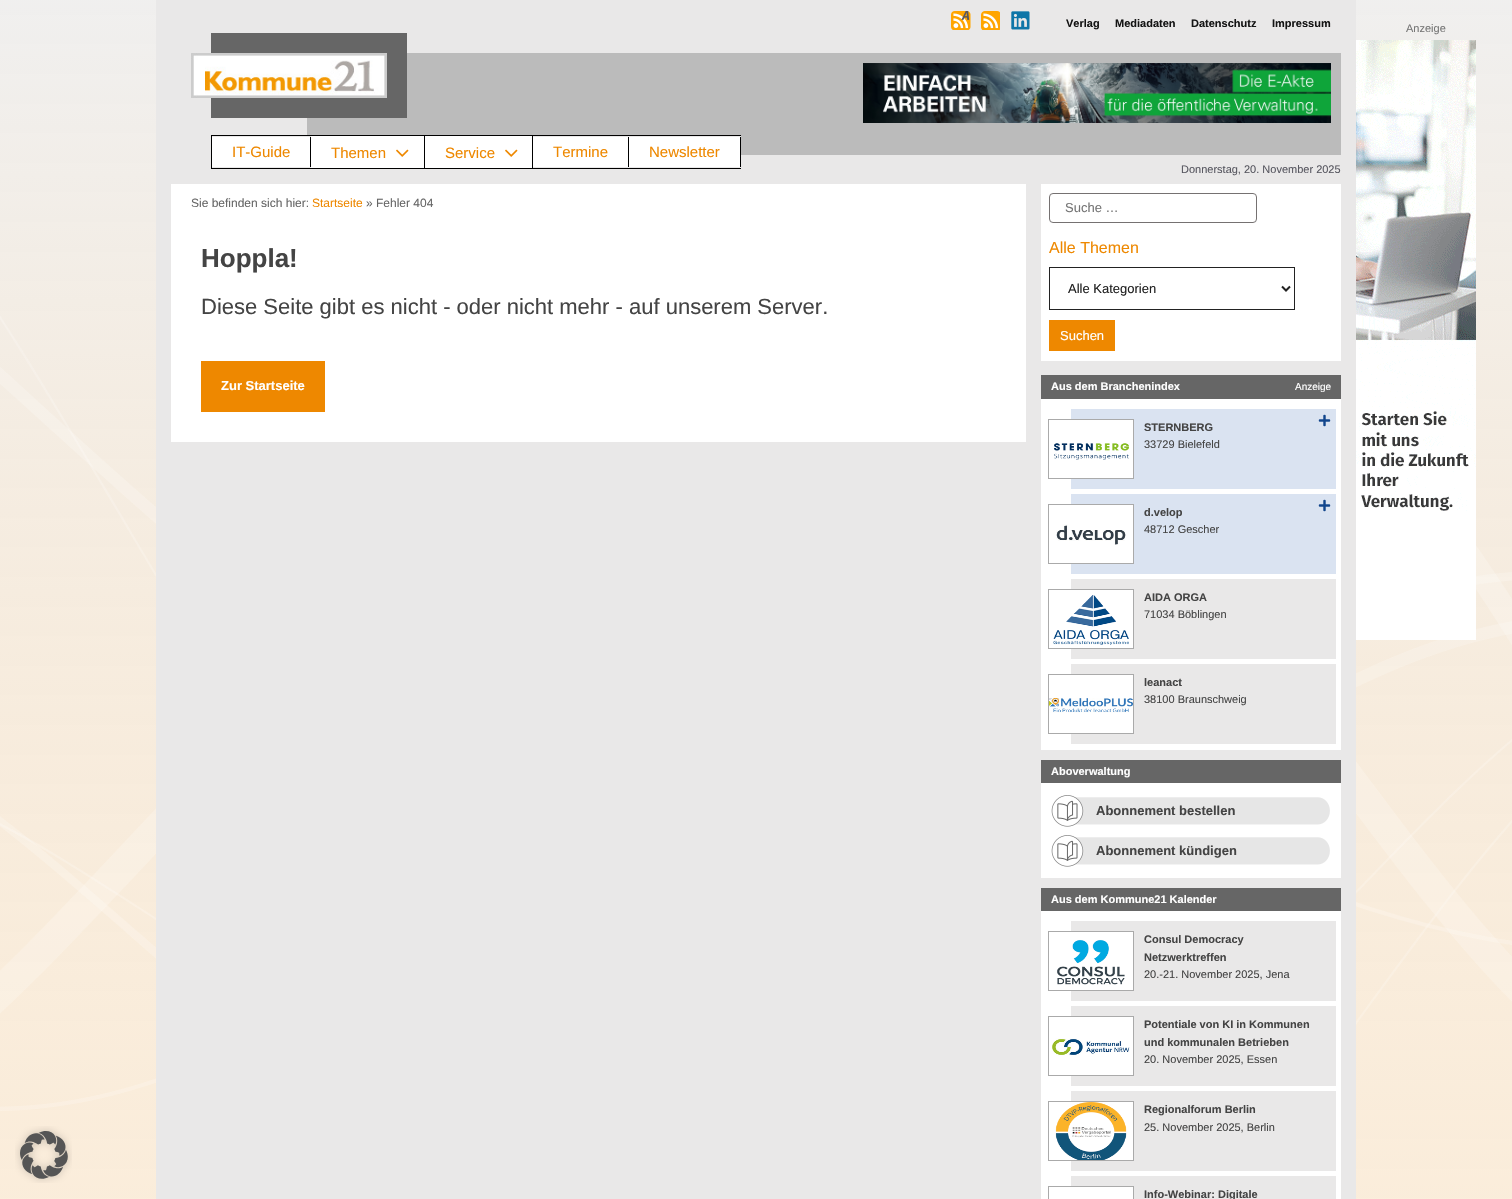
void draw(SkCanvas* c) {
SkPaint p;
p.setAntiAlias(true);
auto F=[&](const char* family, int weight, float size, bool italic = false){SkFontStyle style(weight, SkFontStyle::kNormal_Width,italic ? SkFontStyle::kItalic_Slant : SkFontStyle::kUpright_Slant);SkFont result(fontMgr->matchFamilyStyle(family, style), size);result.setSubpixel(true);return result;};
auto T=[&](const char* s, float x, float y, const SkFont& font){c->drawString(s, x, y, font, p);};
auto R=[&](float x, float y, float w, float h){c->drawRect(SkRect::MakeXYWH(x, y, w, h), p);};
auto I=[&](const char* path, float x, float y, float w, float h){auto image = SkImages::DeferredFromEncodedData(SkData::MakeFromFileName(path));c->drawImageRect(image, SkRect::MakeXYWH(x, y, w, h), SkSamplingOptions());};
auto P=[&](const char* data, bool evenOdd = false){SkPath result = *SkParsePath::FromSVGString(data);if (evenOdd) result.setFillType(SkPathFillType::kEvenOdd);return result;};
c->clear(0xffffffff);
I("1.png",0,0,1512,1199);
p.setColor(0xffe9e8e8);
R(156,0,1200,1199);
I("2.png",951,11,20,19);
I("3.png",981,11,19,19);
I("4.png",1011,11,19,19);
auto f1 = F("Liberation Sans",700,11);
p.setColor(0xff141414);
T("Verlag",1066,27,f1);
T("Mediadaten",1115,27,f1);
T("Datenschutz",1191,27,f1);
T("Impressum",1272,27,f1);
p.setColor(0xffbbbbbb);
R(307,53,1034,102);
p.setColor(0xff666666);
R(211,33,196,85);
I("5.png",191,53,196,45);
I("6.png",863,63,468,60);
p.setColor(0xffe9e8e8);
R(307,136,434,19);
p.setColor(0xff000000);
R(211,135,530,1);
R(211,168,530,1);
R(211,135,1,34);
p.setColor(0xffffffff);
R(212,137,98,30);
p.setColor(0xff000000);
R(310,137,1,30);
auto f2 = F("Liberation Sans",400,15);
p.setColor(0xffee8800);
T("IT-Guide",232,157,f2);
p.setColor(0xffffffff);
R(311,136,113,32);
p.setColor(0xff000000);
R(424,136,1,32);
p.setColor(0xffee8800);
T("Themen",331,158,f2);
I("7.png",396,149,13,8);
p.setColor(0xffffffff);
R(425,136,107,32);
p.setColor(0xff000000);
R(532,136,1,32);
p.setColor(0xffee8800);
T("Service",445,158,f2);
I("7.png",505,149,13,8);
p.setColor(0xffffffff);
R(533,137,95,30);
p.setColor(0xff000000);
R(628,137,1,30);
p.setColor(0xffee8800);
T("Termine",553,157,f2);
p.setColor(0xffffffff);
R(629,137,111,30);
p.setColor(0xff000000);
R(740,137,1,30);
p.setColor(0xffee8800);
T("Newsletter",649,157,f2);
auto f3 = F("Liberation Sans",400,11);
p.setColor(0xff575760);
T("Donnerstag, 20. November 2025",1181,173,f3);
I("8.png",15,1126,57,57);
p.setColor(0xff757575);
T("Anzeige",1406,32,f3);
I("9.png",1356,40,120,600);
p.setColor(0xffffffff);
R(171,184,855,258);
auto f4 = F("Liberation Sans",400,12);
p.setColor(0xff666666);
T("Sie befinden sich hier:",191,207,f4);
p.setColor(0xffee8800);
T("Startseite",312,207,f4);
p.setColor(0xff666666);
T("» Fehler 404",366,207,f4);
auto f5 = F("Liberation Sans",700,26);
p.setColor(0xff444444);
T("Hoppla!",201,267,f5);
auto f6 = F("Liberation Sans",400,22);
T("Diese Seite gibt es nicht - oder nicht mehr - auf unserem Server.",201,314,f6);
p.setColor(0xffee8800);
R(201,361,124,51);
auto f7 = F("Liberation Sans",700,13);
p.setColor(0xffffffff);
T("Zur Startseite",221,390,f7);
R(1041,184,300,177);
p.setStroke(true);
p.setStrokeWidth(1);
p.setColor(0xff757171);
c->drawRoundRect(SkRect::MakeXYWH(1049.5,193.5,207,29),3.5,3.5,p);
auto f8 = F("Liberation Sans",400,13);
p.setStroke(false);
p.setColor(0xff757575);
T("Suche …",1065,212,f8);
auto f9 = F("Liberation Sans",400,16);
p.setColor(0xffee8800);
T("Alle Themen",1049,253,f9);
p.setStroke(true);
p.setColor(0xff222222);
c->drawRect(SkRect::MakeXYWH(1049.5,267.5,245,42),p);
p.setStrokeWidth(2);
c->drawPath(P("M1282 286.5l4 4l4-4"),p);
p.setStroke(false);
T("Alle Kategorien",1068,293,f8);
p.setColor(0xffee8800);
R(1049,320,66,31);
p.setColor(0xffffffff);
T("Suchen",1060,340,f8);
R(1041,399,300,351);
p.setColor(0xff666666);
R(1041,375,300,24);
p.setColor(0xffffffff);
T("Aus dem Branchenindex",1051,390,f1);
auto f10 = F("Liberation Sans",400,10);
T("Anzeige",1295,390,f10);
p.setColor(0xffdae3f1);
R(1071,409,265,80);
p.setStroke(true);
p.setStrokeWidth(1);
p.setColor(0xffaaaaaa);
c->drawRect(SkRect::MakeXYWH(1048.5,419.5,85,59),p);
I("10.png",1054,420,79,58);
p.setStroke(false);
p.setColor(0xff444444);
T("STERNBERG",1144,431,f1);
T("33729 Bielefeld",1144,448,f3);
I("11.png",1318,414,13,13);
p.setColor(0xffdae3f1);
R(1071,494,265,80);
p.setStroke(true);
p.setColor(0xffaaaaaa);
c->drawRect(SkRect::MakeXYWH(1048.5,504.5,85,59),p);
I("12.png",1056,505,77,58);
p.setStroke(false);
p.setColor(0xff444444);
T("d.velop",1144,516,f1);
T("48712 Gescher",1144,533,f3);
I("11.png",1318,499,13,13);
p.setColor(0xffe9e8e8);
R(1071,579,265,80);
p.setStroke(true);
p.setColor(0xffaaaaaa);
c->drawRect(SkRect::MakeXYWH(1048.5,589.5,85,59),p);
I("13.png",1053,590,80,58);
p.setStroke(false);
p.setColor(0xff444444);
T("AIDA ORGA",1144,601,f1);
T("71034 Böblingen",1144,618,f3);
p.setColor(0xffe9e8e8);
R(1071,664,265,80);
p.setStroke(true);
p.setColor(0xffaaaaaa);
c->drawRect(SkRect::MakeXYWH(1048.5,674.5,85,59),p);
I("14.png",1049,675,84,58);
p.setStroke(false);
p.setColor(0xff444444);
T("leanact",1144,686,f1);
T("38100 Braunschweig",1144,703,f3);
p.setColor(0xffffffff);
R(1041,783,300,95);
p.setColor(0xff666666);
R(1041,760,300,23);
p.setColor(0xffffffff);
T("Aboverwaltung",1051,775,f1);
I("15.png",1051,795,279,32);
p.setColor(0xff444444);
T("Abonnement bestellen",1096,815,f7);
I("15.png",1051,835,279,32);
T("Abonnement kündigen",1096,855,f7);
p.setColor(0xffffffff);
R(1041,911,300,288);
p.setColor(0xff666666);
R(1041,888,300,23);
p.setColor(0xffffffff);
T("Aus dem Kommune21 Kalender",1051,903,f1);
p.setColor(0xffe9e8e8);
R(1071,921,265,80);
p.setStroke(true);
p.setColor(0xffaaaaaa);
c->drawRect(SkRect::MakeXYWH(1048.5,931.5,85,59),p);
I("16.png",1057,932,76,58);
p.setStroke(false);
p.setColor(0xff444444);
T("Consul Democracy",1144,943,f1);
T("Netzwerktreffen",1144,961,f1);
T("20.-21. November 2025, Jena",1144,978,f3);
p.setColor(0xffe9e8e8);
R(1071,1006,265,80);
p.setStroke(true);
p.setColor(0xffaaaaaa);
c->drawRect(SkRect::MakeXYWH(1048.5,1016.5,85,59),p);
I("17.png",1052,1017,81,58);
p.setStroke(false);
p.setColor(0xff444444);
T("Potentiale von KI in Kommunen",1144,1028,f1);
T("und kommunalen Betrieben",1144,1046,f1);
T("20. November 2025, Essen",1144,1063,f3);
p.setColor(0xffe9e8e8);
R(1071,1091,265,80);
p.setStroke(true);
p.setColor(0xffaaaaaa);
c->drawRect(SkRect::MakeXYWH(1048.5,1101.5,85,59),p);
I("18.png",1055,1102,78,58);
p.setStroke(false);
p.setColor(0xff444444);
T("Regionalforum Berlin",1144,1113,f1);
T("25. November 2025, Berlin",1144,1131,f3);
p.setColor(0xffe9e8e8);
R(1071,1176,265,23);
p.setStroke(true);
p.setColor(0xffaaaaaa);
c->drawRect(SkRect::MakeXYWH(1048.5,1186.5,85,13),p);
p.setStroke(false);
p.setColor(0xffffffff);
R(1071,1187,62,12);
p.setColor(0xff444444);
T("Info-Webinar: Digitale",1144,1198,f1);
}
